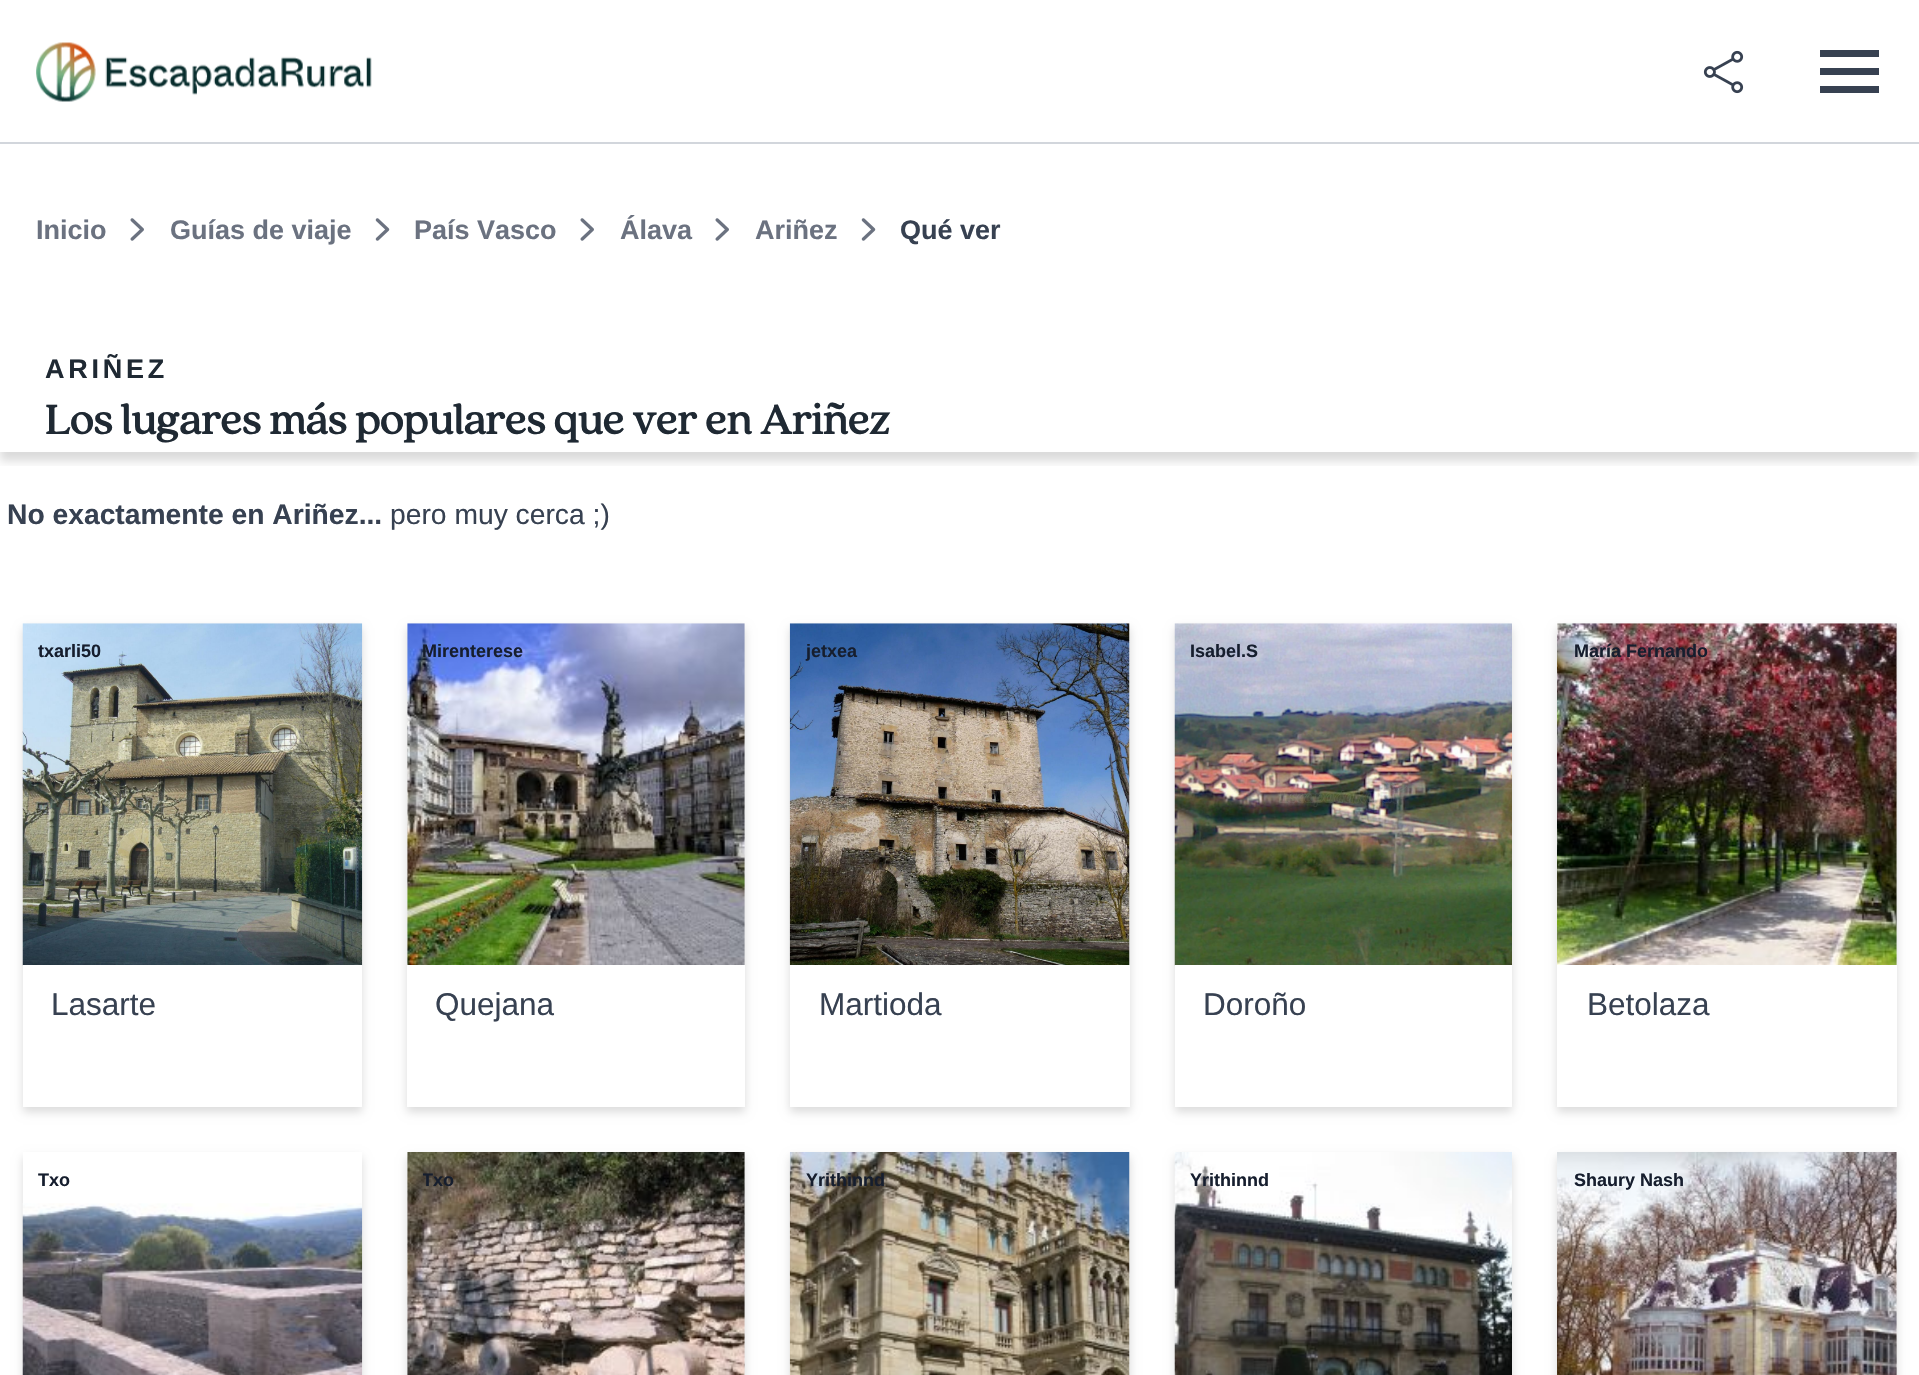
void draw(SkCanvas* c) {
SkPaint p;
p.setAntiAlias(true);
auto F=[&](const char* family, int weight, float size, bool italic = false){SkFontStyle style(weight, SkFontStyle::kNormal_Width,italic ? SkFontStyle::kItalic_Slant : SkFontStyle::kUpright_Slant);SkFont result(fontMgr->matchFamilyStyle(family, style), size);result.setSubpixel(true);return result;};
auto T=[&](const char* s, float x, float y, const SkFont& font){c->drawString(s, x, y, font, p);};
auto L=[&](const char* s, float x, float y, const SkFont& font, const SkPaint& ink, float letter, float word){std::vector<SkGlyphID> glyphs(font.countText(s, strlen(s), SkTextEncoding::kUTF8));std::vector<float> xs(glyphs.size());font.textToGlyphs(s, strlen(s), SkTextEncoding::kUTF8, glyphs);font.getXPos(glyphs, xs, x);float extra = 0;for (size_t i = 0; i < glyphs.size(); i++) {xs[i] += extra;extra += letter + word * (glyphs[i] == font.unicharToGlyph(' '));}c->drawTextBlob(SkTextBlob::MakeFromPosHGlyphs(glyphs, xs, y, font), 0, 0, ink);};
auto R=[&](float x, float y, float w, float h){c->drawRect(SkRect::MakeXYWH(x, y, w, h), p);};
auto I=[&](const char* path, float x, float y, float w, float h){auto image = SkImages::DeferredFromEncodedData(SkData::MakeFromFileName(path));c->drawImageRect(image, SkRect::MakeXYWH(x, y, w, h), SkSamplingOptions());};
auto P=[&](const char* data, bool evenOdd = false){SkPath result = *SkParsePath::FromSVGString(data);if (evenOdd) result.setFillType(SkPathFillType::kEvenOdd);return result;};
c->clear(0xffffffff);
p.setColor(0xffd2d6dc);
R(0,142,1919,2);
I("1.png",36,42,336,60);
I("2.png",1703,50,41,44);
p.setColor(0xff374151);
R(1820,50,59,7);
R(1820,68,59,7);
R(1820,86,59,7);
auto f1 = F("Liberation Sans",700,27);
p.setColor(0xff6b7280);
T("Inicio",36,239,f1);
I("3.png",130,218,14,23);
T("Guías de viaje",170,239,f1);
I("4.png",375,218,15,23);
T("País Vasco",414,239,f1);
I("3.png",580,218,14,23);
T("Álava",620,239,f1);
I("3.png",715,218,14,23);
T("Ariñez",755,239,f1);
I("4.png",861,218,15,23);
p.setColor(0xff374151);
T("Qué ver",900,239,f1);
c->save();
c->clipRect(SkRect::MakeXYWH(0,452,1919,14));
p.setColor(0x24000000);
p.setMaskFilter(SkMaskFilter::MakeBlur(kNormal_SkBlurStyle, 4.5));
c->drawRect(SkRect::MakeXYWH(0,324,1919,137),p);
p.setMaskFilter(nullptr);
c->restore();
p.setColor(0xff1f2933);
L("ARIÑEZ",45,378,f1,p,3.75,0);
auto f2 = F("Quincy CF",700,45);
T("Los lugares más populares que ver en Ariñez",45,434,f2);
auto f3 = F("Liberation Sans",700,28.25);
p.setColor(0xff374151);
T("No exactamente en Ariñez...",7,524,f3);
auto f4 = F("Liberation Sans",400,28.25);
T("pero muy cerca ;)",390,524,f4);
p.setColor(0x24000000);
p.setMaskFilter(SkMaskFilter::MakeBlur(kNormal_SkBlurStyle, 4.5));
c->drawRect(SkRect::MakeXYWH(23,628,339,484),p);
p.setMaskFilter(nullptr);
I("5.png",22,623,341,343);
auto f5 = F("Liberation Sans",700,18);
p.setColor(0xff161e2e);
T("txarli50",38,657,f5);
p.setColor(0xffffffff);
R(23,965,339,142);
auto f6 = F("Liberation Sans",400,31.5);
p.setColor(0xff374151);
T("Lasarte",51,1015,f6);
p.setColor(0x24000000);
p.setMaskFilter(SkMaskFilter::MakeBlur(kNormal_SkBlurStyle, 4.5));
c->drawRect(SkRect::MakeXYWH(407,628,338,484),p);
p.setMaskFilter(nullptr);
I("6.png",407,623,338,342);
p.setColor(0xff161e2e);
T("Mirenterese",422,657,f5);
p.setColor(0xffffffff);
R(407,965,338,142);
p.setColor(0xff374151);
T("Quejana",435,1015,f6);
p.setColor(0x24000000);
p.setMaskFilter(SkMaskFilter::MakeBlur(kNormal_SkBlurStyle, 4.5));
c->drawRect(SkRect::MakeXYWH(790,628,340,484),p);
p.setMaskFilter(nullptr);
I("7.png",789,623,341,342);
p.setColor(0xff161e2e);
T("jetxea",806,657,f5);
p.setColor(0xffffffff);
R(790,965,340,142);
p.setColor(0xff374151);
T("Martioda",819,1015,f6);
p.setColor(0x24000000);
p.setMaskFilter(SkMaskFilter::MakeBlur(kNormal_SkBlurStyle, 4.5));
c->drawRect(SkRect::MakeXYWH(1175,628,337,484),p);
p.setMaskFilter(nullptr);
I("8.png",1174,623,338,343);
p.setColor(0xff161e2e);
T("Isabel.S",1190,657,f5);
p.setColor(0xffffffff);
R(1175,965,337,142);
p.setColor(0xff374151);
T("Doroño",1203,1015,f6);
p.setColor(0x24000000);
p.setMaskFilter(SkMaskFilter::MakeBlur(kNormal_SkBlurStyle, 4.5));
c->drawRect(SkRect::MakeXYWH(1557,628,340,484),p);
p.setMaskFilter(nullptr);
I("9.png",1557,623,340,342);
p.setColor(0xff161e2e);
T("María Fernando",1574,657,f5);
p.setColor(0xffffffff);
R(1557,965,340,142);
p.setColor(0xff374151);
T("Betolaza",1587,1015,f6);
c->save();
c->clipPath(P("M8 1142h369v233h-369zm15 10h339v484h-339z",true),true);
p.setColor(0x24000000);
p.setMaskFilter(SkMaskFilter::MakeBlur(kNormal_SkBlurStyle, 4.5));
c->drawRect(SkRect::MakeXYWH(23,1157,339,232),p);
p.setMaskFilter(nullptr);
c->restore();
p.setColor(0xff161e2e);
T("Txo",38,1186,f5);
I("10.png",22,1203,341,172);
p.setColor(0x24000000);
p.setMaskFilter(SkMaskFilter::MakeBlur(kNormal_SkBlurStyle, 4.5));
c->drawRect(SkRect::MakeXYWH(407,1157,338,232),p);
p.setMaskFilter(nullptr);
I("11.png",407,1152,338,223);
c->save();
c->clipRect(SkRect::MakeXYWH(423,1170,304,27));
p.setColor(0xff161e2e);
T("Txo",422,1186,f5);
c->restore();
p.setColor(0x24000000);
p.setMaskFilter(SkMaskFilter::MakeBlur(kNormal_SkBlurStyle, 4.5));
c->drawRect(SkRect::MakeXYWH(790,1157,340,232),p);
p.setMaskFilter(nullptr);
I("12.png",789,1152,341,223);
p.setColor(0xff161e2e);
T("Yrithinnd",806,1186,f5);
p.setColor(0x24000000);
p.setMaskFilter(SkMaskFilter::MakeBlur(kNormal_SkBlurStyle, 4.5));
c->drawRect(SkRect::MakeXYWH(1175,1157,337,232),p);
p.setMaskFilter(nullptr);
I("13.png",1174,1152,338,223);
p.setColor(0xff161e2e);
T("Yrithinnd",1190,1186,f5);
p.setColor(0x24000000);
p.setMaskFilter(SkMaskFilter::MakeBlur(kNormal_SkBlurStyle, 4.5));
c->drawRect(SkRect::MakeXYWH(1557,1157,340,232),p);
p.setMaskFilter(nullptr);
I("14.png",1557,1152,340,223);
p.setColor(0xff161e2e);
T("Shaury Nash",1574,1186,f5);
}
